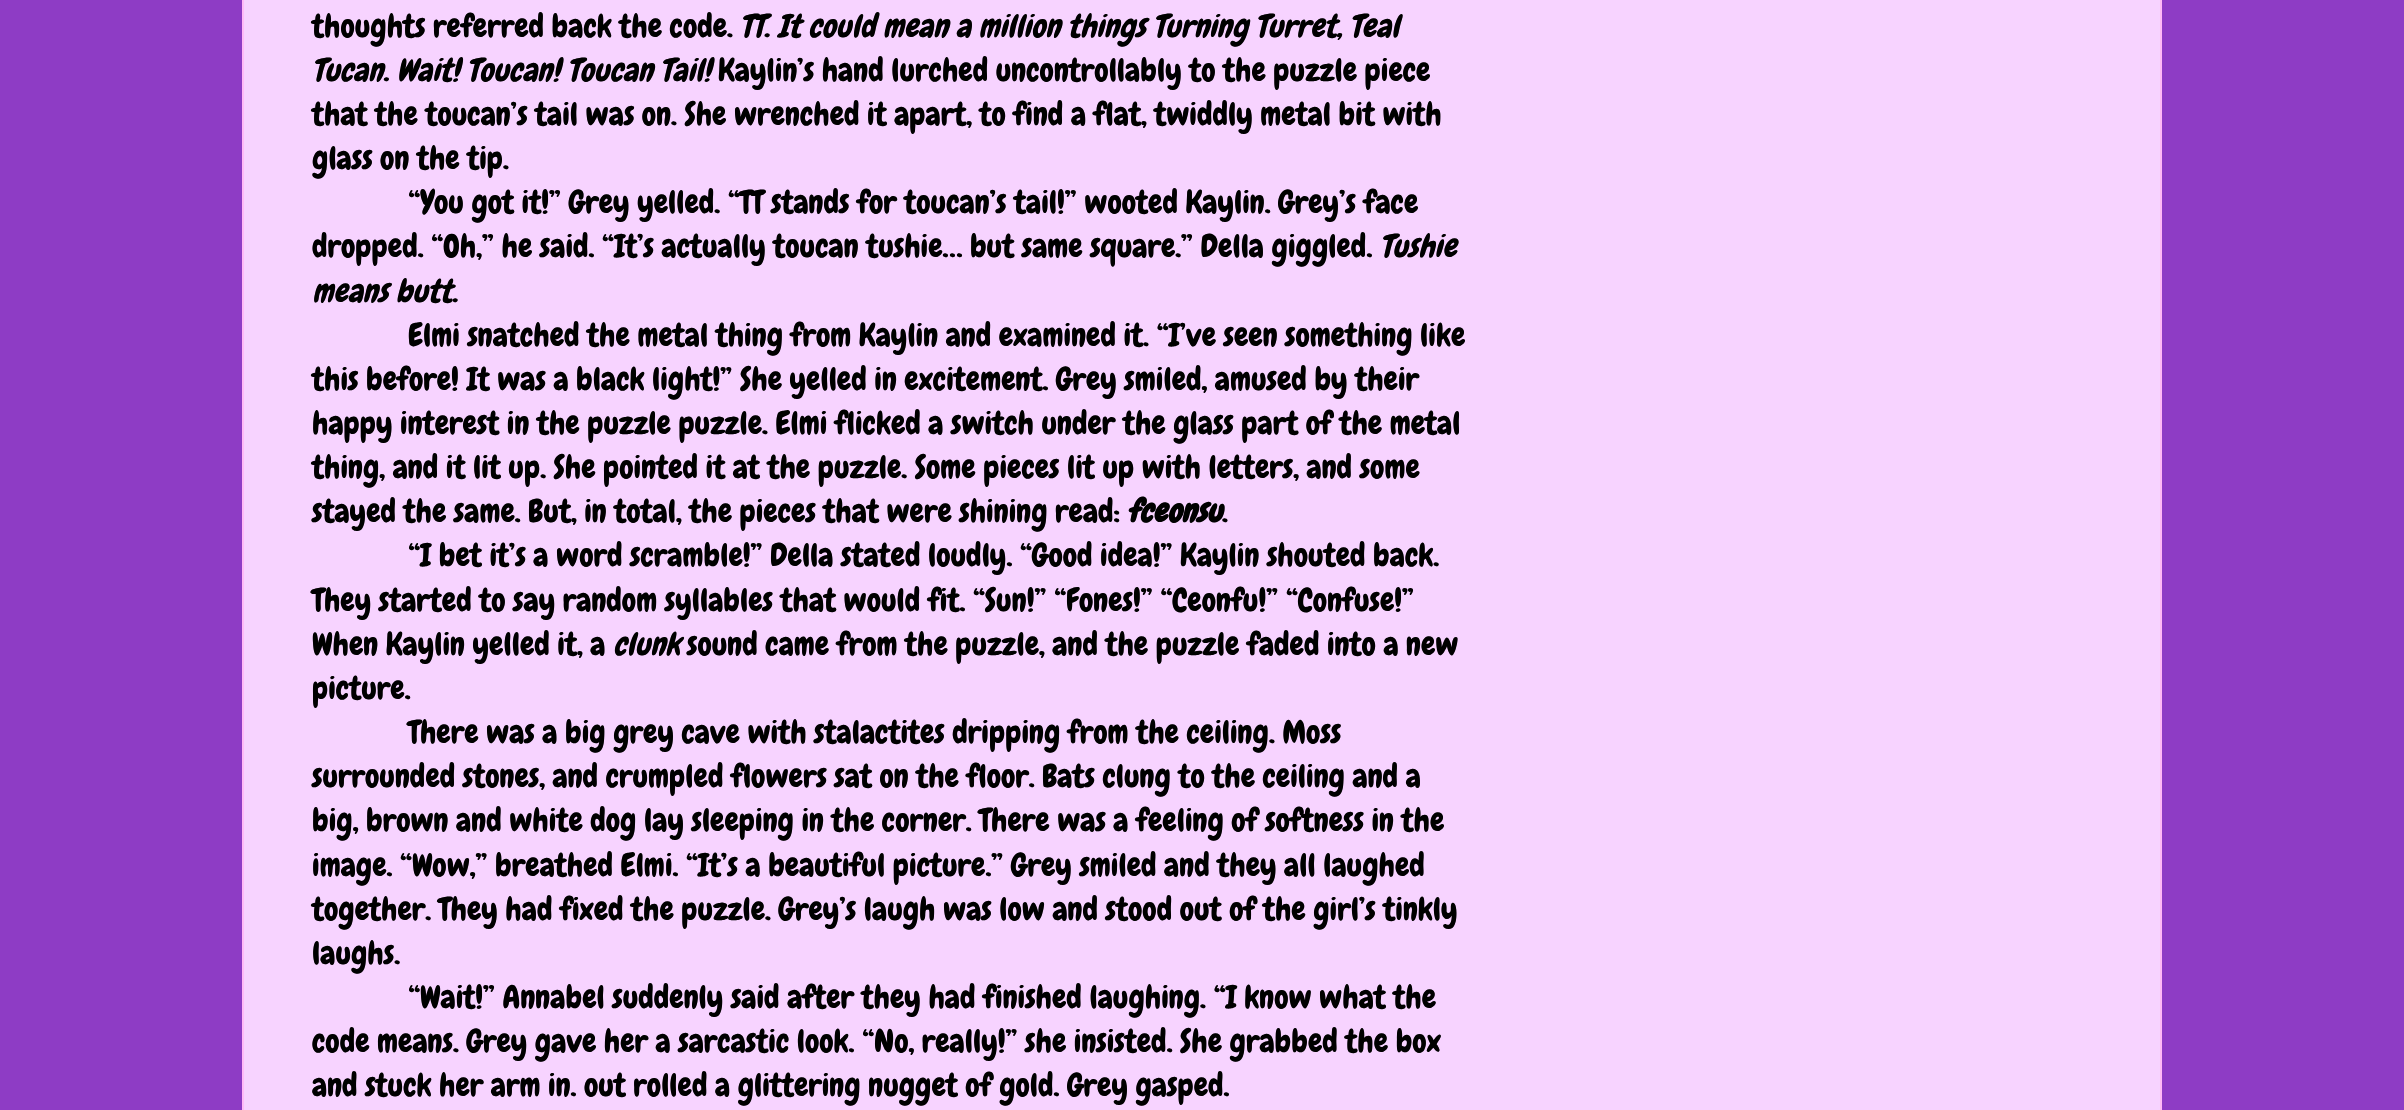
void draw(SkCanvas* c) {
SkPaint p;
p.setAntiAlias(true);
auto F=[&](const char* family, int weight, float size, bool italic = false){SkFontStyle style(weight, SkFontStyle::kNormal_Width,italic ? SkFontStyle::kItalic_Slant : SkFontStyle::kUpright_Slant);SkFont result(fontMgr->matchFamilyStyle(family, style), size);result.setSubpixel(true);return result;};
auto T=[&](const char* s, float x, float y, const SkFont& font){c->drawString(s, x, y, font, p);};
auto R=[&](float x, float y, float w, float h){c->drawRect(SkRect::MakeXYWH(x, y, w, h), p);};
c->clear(0xff8e3cc5);
p.setColor(0xfff7d3ff);
R(244,0,1916,1110);
p.setColor(0xffffbaf6);
R(2160,0,2,1110);
R(242,0,2,1110);
auto f1 = F("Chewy",400,32);
p.setColor(0xff000000);
T("thoughts referred back the code.",312,37,f1);
auto f2 = F("Chewy",400,32,true);
T("TT. It could mean a million things Turning Turret, Teal",740,37,f2);
T("Tucan. Wait! Toucan! Toucan Tail!",312,81,f2);
T("Kaylin’s hand lurched uncontrollably to the puzzle piece",718,81,f1);
T("that the toucan’s tail was on. She wrenched it apart, to find a flat, twiddly metal bit with",312,125,f1);
T("glass on the tip.",312,169,f1);
T("“You got it!” Grey yelled. “TT stands for toucan’s tail!” wooted Kaylin. Grey’s face",408,213,f1);
T("dropped. “Oh,” he said. “It’s actually toucan tushie… but same square.” Della giggled.",312,257,f1);
T("Tushie",1380,257,f2);
T("means butt.",312,302,f2);
T("Elmi snatched the metal thing from Kaylin and examined it. “I’ve seen something like",408,346,f1);
T("this before! It was a black light!” She yelled in excitement. Grey smiled, amused by their",312,390,f1);
T("happy interest in the puzzle puzzle. Elmi flicked a switch under the glass part of the metal",312,434,f1);
T("thing, and it lit up. She pointed it at the puzzle. Some pieces lit up with letters, and some",312,478,f1);
T("stayed the same. But, in total, the pieces that were shining read:",312,522,f1);
auto f3 = F("Chewy",700,32,true);
T("fceonsu",1127,522,f3);
T(".",1222,522,f1);
T("“I bet it’s a word scramble!” Della stated loudly. “Good idea!” Kaylin shouted back.",408,566,f1);
T("They started to say random syllables that would fit. “Sun!” “Fones!” “Ceonfu!” “Confuse!”",312,611,f1);
T("When Kaylin yelled it, a",312,655,f1);
T("clunk",613,655,f2);
T("sound came from the puzzle, and the puzzle faded into a new",687,655,f1);
T("picture.",312,699,f1);
T("There was a big grey cave with stalactites dripping from the ceiling. Moss",408,743,f1);
T("surrounded stones, and crumpled flowers sat on the floor. Bats clung to the ceiling and a",312,787,f1);
T("big, brown and white dog lay sleeping in the corner. There was a feeling of softness in the",312,831,f1);
T("image. “Wow,” breathed Elmi. “It’s a beautiful picture.” Grey smiled and they all laughed",312,876,f1);
T("together. They had fixed the puzzle. Grey’s laugh was low and stood out of the girl’s tinkly",312,920,f1);
T("laughs.",312,964,f1);
T("“Wait!” Annabel suddenly said after they had finished laughing. “I know what the",408,1008,f1);
T("code means. Grey gave her a sarcastic look. “No, really!” she insisted. She grabbed the box",312,1052,f1);
T("and stuck her arm in. out rolled a glittering nugget of gold. Grey gasped.",312,1096,f1);
}
